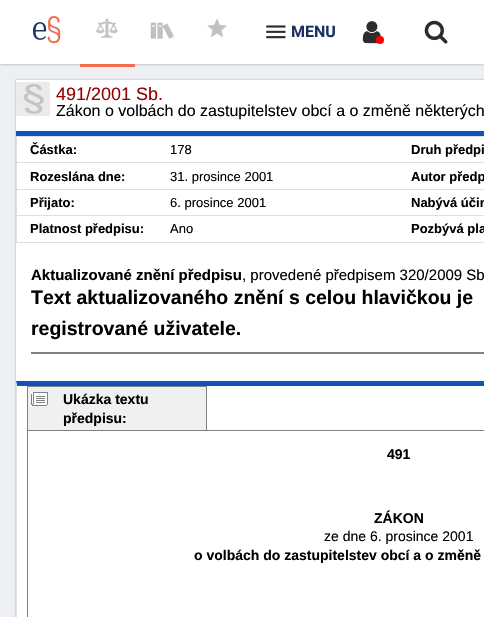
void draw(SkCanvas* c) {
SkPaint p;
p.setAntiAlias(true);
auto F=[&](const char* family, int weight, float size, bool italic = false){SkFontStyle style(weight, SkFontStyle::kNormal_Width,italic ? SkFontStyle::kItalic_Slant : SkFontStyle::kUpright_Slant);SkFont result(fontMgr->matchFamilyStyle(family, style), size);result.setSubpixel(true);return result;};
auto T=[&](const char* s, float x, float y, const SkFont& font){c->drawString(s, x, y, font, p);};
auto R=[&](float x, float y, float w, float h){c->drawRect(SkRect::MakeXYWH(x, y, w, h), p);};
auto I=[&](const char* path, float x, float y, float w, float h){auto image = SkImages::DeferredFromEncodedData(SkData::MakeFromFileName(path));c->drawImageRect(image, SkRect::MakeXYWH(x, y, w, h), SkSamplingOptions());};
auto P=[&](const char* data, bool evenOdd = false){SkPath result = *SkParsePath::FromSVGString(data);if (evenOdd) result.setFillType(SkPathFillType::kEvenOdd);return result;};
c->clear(0xffedeff2);
p.setColor(0x661b325f);
p.setMaskFilter(SkMaskFilter::MakeBlur(kNormal_SkBlurStyle, 1.5));
c->drawRect(SkRect::MakeXYWH(0,0,484,64),p);
p.setMaskFilter(nullptr);
p.setColor(0xffffffff);
R(0,0,484,64);
I("1.png",33,16,28,28);
p.setColor(0xfff26c4f);
R(80,64,55,3);
I("2.png",96,18,22,20);
I("3.png",150,22,24,17);
I("4.png",207,18,20,19);
I("5.png",266,25,20,14);
auto f1 = F("Roboto",700,16);
p.setColor(0xff1b325f);
T("MENU",291,37,f1);
I("6.png",362,21,19,23);
p.setColor(0xffff0000);
c->drawCircle(380,40,4,p);
I("7.png",424,20,24,24);
p.setColor(0x661b325f);
p.setMaskFilter(SkMaskFilter::MakeBlur(kNormal_SkBlurStyle, 1));
c->drawRect(SkRect::MakeXYWH(16,80,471,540),p);
p.setMaskFilter(nullptr);
p.setColor(0xffffffff);
R(16,80,468,537);
I("8.png",16,82,34,34);
p.setColor(0xff0e53bb);
R(16,131,468,5);
auto f2 = F("Liberation Sans",400,18);
p.setColor(0xff980000);
T("491/2001 Sb.",56,100,f2);
auto f3 = F("Liberation Sans",400,16);
p.setColor(0xff000000);
T("Zákon o volbách do zastupitelstev obcí a o změně některých",56,116,f3);
p.setColor(0xffdfdfdf);
R(16,136,468,1);
R(16,242,468,1);
R(16,136,1,107);
auto f4 = F("Liberation Sans",700,13);
p.setColor(0xff000000);
T("Částka:",30,154,f4);
auto f5 = F("Liberation Sans",400,13);
T("178",170,154,f5);
p.setColor(0xffdfdfdf);
R(16,162,468,1);
p.setColor(0xff000000);
T("Druh předpi",411,154,f4);
T("Rozeslána dne:",30,181,f4);
T("31. prosince 2001",170,181,f5);
p.setColor(0xffdfdfdf);
R(16,189,468,1);
p.setColor(0xff000000);
T("Autor předp",411,181,f4);
T("Přijato:",30,207,f4);
T("6. prosince 2001",170,207,f5);
p.setColor(0xffdfdfdf);
R(16,215,468,1);
p.setColor(0xff000000);
T("Nabývá účin",411,207,f4);
T("Platnost předpisu:",30,233,f4);
T("Ano",170,233,f5);
T("Pozbývá pla",411,233,f4);
auto f6 = F("Liberation Sans",700,15);
T("Aktualizované znění předpisu",31,280,f6);
auto f7 = F("Liberation Sans",400,15);
T(", provedené předpisem 320/2009 Sb",242,280,f7);
auto f8 = F("Liberation Sans",700,19.5);
T("Text aktualizovaného znění s celou hlavičkou je",31,304,f8);
T("registrované uživatele.",31,335,f8);
p.setColor(0xff808080);
R(31,352,453,2);
p.setColor(0xff0e53bb);
c->drawPath(P("M16 381h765l-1 5h-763z"),p);
p.setColor(0xffdfdfdf);
c->drawPath(P("M16 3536v-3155l1 5v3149z"),p);
p.setColor(0xfff0f0f0);
R(28,387,178,43);
I("9.png",31,392,17,14);
p.setColor(0xff808080);
R(27,386,180,1);
R(206,386,1,44);
R(27,386,1,44);
auto f9 = F("Liberation Sans",700,14);
p.setColor(0xff000000);
T("Ukázka textu",63,404,f9);
T("předpisu:",63,423,f9);
p.setStroke(true);
p.setStrokeWidth(1);
p.setColor(0xff808080);
c->drawRect(SkRect::MakeXYWH(27.5,430.5,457,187),p);
p.setStroke(false);
p.setColor(0xff000000);
T("491",387,459,f9);
T("ZÁKON",374,523,f9);
auto f10 = F("Liberation Sans",400,14);
T("ze dne 6. prosince 2001",324,541,f10);
T("o volbách do zastupitelstev obcí a o změně",194,560,f9);
}
